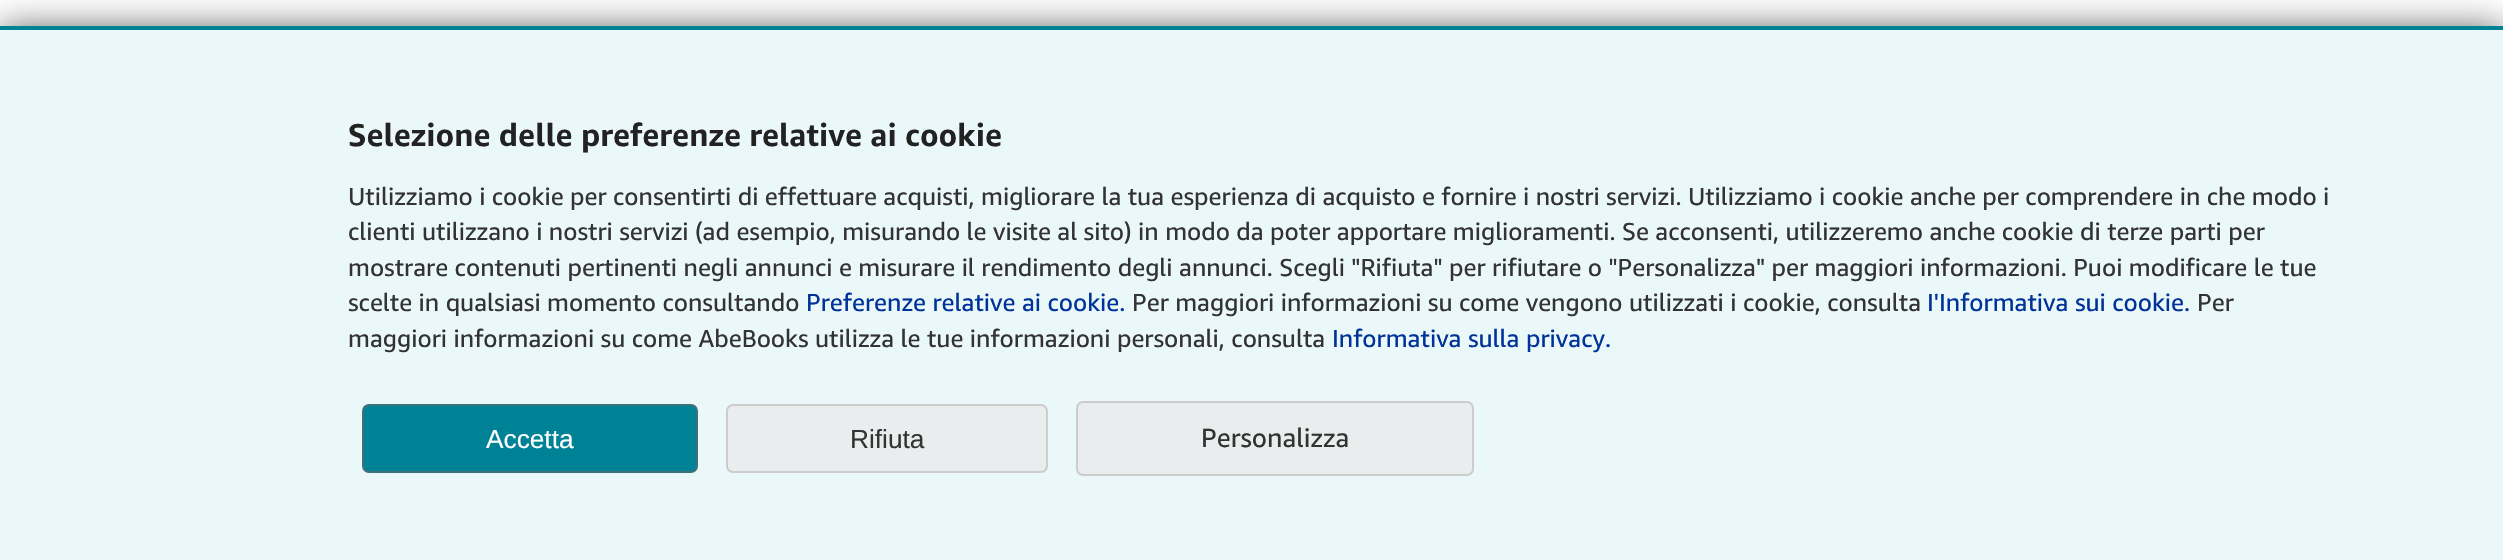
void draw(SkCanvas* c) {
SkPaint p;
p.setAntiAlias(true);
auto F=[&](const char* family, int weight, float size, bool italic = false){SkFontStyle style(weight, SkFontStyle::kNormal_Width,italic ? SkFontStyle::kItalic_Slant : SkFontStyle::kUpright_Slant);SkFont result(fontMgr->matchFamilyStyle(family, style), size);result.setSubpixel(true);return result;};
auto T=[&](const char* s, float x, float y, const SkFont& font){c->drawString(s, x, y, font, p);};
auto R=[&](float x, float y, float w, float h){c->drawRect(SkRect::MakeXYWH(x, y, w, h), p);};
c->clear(0xffffffff);
p.setColor(0xb3000000);
p.setMaskFilter(SkMaskFilter::MakeBlur(kNormal_SkBlurStyle, 17.5));
c->drawRect(SkRect::MakeXYWH(0,30,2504,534),p);
p.setMaskFilter(nullptr);
p.setColor(0xffebf8fa);
R(0,30,2503,530);
p.setColor(0xff008296);
R(0,26,2503,4);
auto f1 = F("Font",700,31.5);
p.setColor(0xff222222);
T("Selezione delle preferenze relative ai cookie",348,146,f1);
auto f2 = F("Font",400,24.5);
p.setColor(0xff333333);
T("Utilizziamo i cookie per consentirti di effettuare acquisti, migliorare la tua esperienza di acquisto e fornire i nostri servizi. Utilizziamo i cookie anche per comprendere in che modo i",348,205,f2);
T("clienti utilizzano i nostri servizi (ad esempio, misurando le visite al sito) in modo da poter apportare miglioramenti. Se acconsenti, utilizzeremo anche cookie di terze parti per",348,240,f2);
T("mostrare contenuti pertinenti negli annunci e misurare il rendimento degli annunci. Scegli \"Rifiuta\" per rifiutare o \"Personalizza\" per maggiori informazioni. Puoi modificare le tue",348,276,f2);
T("scelte in qualsiasi momento consultando",348,311,f2);
p.setColor(0xff003399);
T("Preferenze relative ai cookie.",806,311,f2);
p.setColor(0xff333333);
T("Per maggiori informazioni su come vengono utilizzati i cookie, consulta",1132,311,f2);
p.setColor(0xff003399);
T("I'Informativa sui cookie.",1927,311,f2);
p.setColor(0xff333333);
T("Per",2197,311,f2);
T("maggiori informazioni su come AbeBooks utilizza le tue informazioni personali, consulta",348,347,f2);
p.setColor(0xff003399);
T("Informativa sulla privacy.",1332,347,f2);
p.setColor(0xff008296);
c->drawRoundRect(SkRect::MakeXYWH(363,405,334,67),6,6,p);
p.setStroke(true);
p.setStrokeWidth(2);
p.setColor(0xff3d7178);
c->drawRoundRect(SkRect::MakeXYWH(363,405,334,67),6,6,p);
auto f3 = F("Liberation Sans",400,26.25);
p.setStroke(false);
p.setColor(0xffffffff);
T("Accetta",486,448,f3);
p.setColor(0xffeaeded);
c->drawRoundRect(SkRect::MakeXYWH(727,405,320,67),6,6,p);
p.setStroke(true);
p.setColor(0xffcccccc);
c->drawRoundRect(SkRect::MakeXYWH(727,405,320,67),6,6,p);
p.setStroke(false);
p.setColor(0xff333333);
T("Rifiuta",850,448,f3);
p.setColor(0xffeaeded);
c->drawRoundRect(SkRect::MakeXYWH(1077,402,396,73),6,6,p);
p.setStroke(true);
p.setColor(0xffcccccc);
c->drawRoundRect(SkRect::MakeXYWH(1077,402,396,73),6,6,p);
auto f4 = F("Font",400,26.25);
p.setStroke(false);
p.setColor(0xff333333);
T("Personalizza",1201,447,f4);
}
